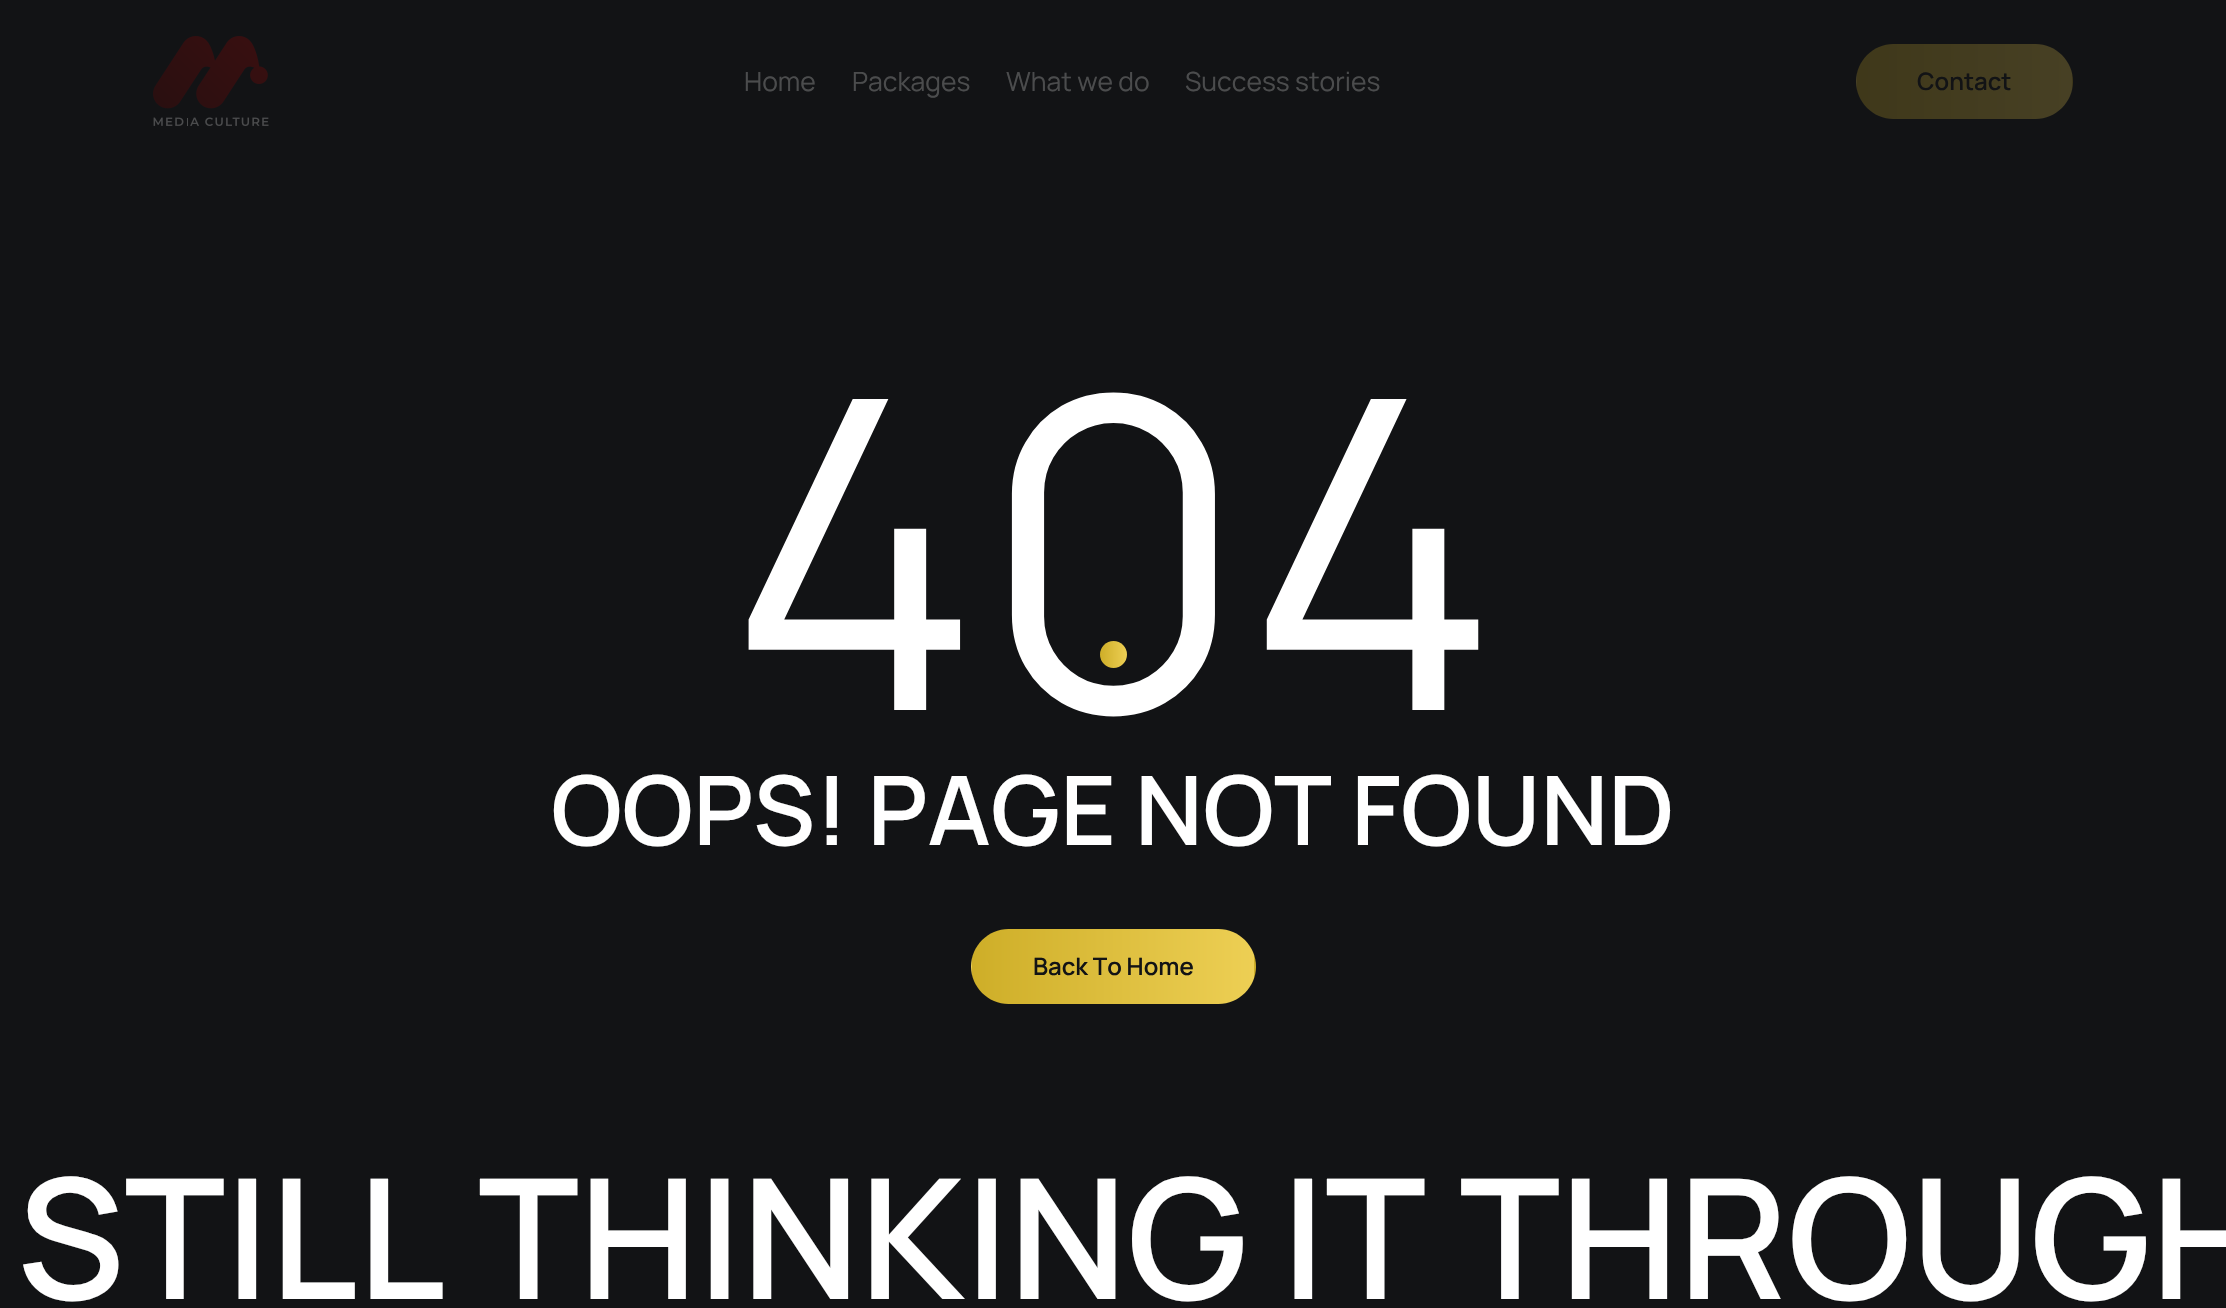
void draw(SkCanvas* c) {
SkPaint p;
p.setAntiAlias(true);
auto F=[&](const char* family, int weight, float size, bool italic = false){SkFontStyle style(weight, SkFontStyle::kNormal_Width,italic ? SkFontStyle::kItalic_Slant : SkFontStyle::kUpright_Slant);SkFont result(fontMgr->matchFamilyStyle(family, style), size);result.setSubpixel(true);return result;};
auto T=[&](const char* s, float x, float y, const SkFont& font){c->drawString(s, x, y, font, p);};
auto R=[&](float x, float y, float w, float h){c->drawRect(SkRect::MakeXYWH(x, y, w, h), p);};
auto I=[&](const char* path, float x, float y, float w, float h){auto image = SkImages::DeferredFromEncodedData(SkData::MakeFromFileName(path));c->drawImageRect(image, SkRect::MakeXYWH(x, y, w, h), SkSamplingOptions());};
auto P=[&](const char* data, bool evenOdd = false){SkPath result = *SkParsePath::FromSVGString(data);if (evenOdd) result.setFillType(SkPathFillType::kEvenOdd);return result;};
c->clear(0xff121315);
I("1.png",153,36,116,90);
auto f1 = F("Manrope",400,26.5);
p.setColor(0xff4b4c4d);
T("Home",744,91,f1);
T("Packages",852,91,f1);
T("What we do",1006,91,f1);
T("Success stories",1185,91,f1);
c->save();
c->clipPath(P("M1893.5 44h142c20.5 0 37.5 17 37.5 37.5c0 20.5-17 37.5-37.5 37.5h-142c-20.5 0-37.5-17-37.5-37.5c0-20.5 17-37.5 37.5-37.5z"),true);
{
const SkColor colors[] = {0xff3f381a,0xff474024};
const float stops[] = {0,1};
const SkPoint ends[] = {{1643,81}, {1857,81}};
p.setShader(SkGradientShader::MakeLinear(ends, colors, stops, 2, SkTileMode::kClamp));
p.setAlpha(255);
}
R(1856,73,1,17);
{
const SkColor colors[] = {0xff3f381a,0xff474024};
const float stops[] = {0,1};
const SkPoint ends[] = {{1857,81}, {2072,81}};
p.setShader(SkGradientShader::MakeLinear(ends, colors, stops, 2, SkTileMode::kClamp));
p.setAlpha(255);
}
R(1857,44,215,75);
{
const SkColor colors[] = {0xff3f381a,0xff474024};
const float stops[] = {0,1};
const SkPoint ends[] = {{2072,81}, {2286,81}};
p.setShader(SkGradientShader::MakeLinear(ends, colors, stops, 2, SkTileMode::kClamp));
p.setAlpha(255);
}
R(2072,73,1,17);
c->restore();
auto f2 = F("Manrope",600,24);
p.setShader(nullptr);
p.setColor(0xff121315);
T("Contact",1917,90,f2);
auto f3 = F("Manrope",400,432);
p.setColor(0xffffffff);
T("404",727,710,f3);
auto f4 = F("Manrope",600,96);
T("OOPS! PAGE NOT FOUND",551,845,f4);
c->save();
c->clipPath(P("M1008.5 929h210c20.5 0 37.5 17 37.5 37.5c0 20.5-17 37.5-37.5 37.5h-210c-20.5 0-37.5-17-37.5-37.5c0-20.5 17-37.5 37.5-37.5z"),true);
{
const SkColor colors[] = {0xffceae28,0xffedcf54};
const float stops[] = {0,1};
const SkPoint ends[] = {{690,966}, {972,966}};
p.setShader(SkGradientShader::MakeLinear(ends, colors, stops, 2, SkTileMode::kClamp));
p.setAlpha(255);
}
R(971,958,1,17);
{
const SkColor colors[] = {0xffceae28,0xffedcf54};
const float stops[] = {0,1};
const SkPoint ends[] = {{972,966}, {1254,966}};
p.setShader(SkGradientShader::MakeLinear(ends, colors, stops, 2, SkTileMode::kClamp));
p.setAlpha(255);
}
R(972,929,282,75);
{
const SkColor colors[] = {0xffceae28,0xffedcf54};
const float stops[] = {0,1};
const SkPoint ends[] = {{1254,966}, {1536,966}};
p.setShader(SkGradientShader::MakeLinear(ends, colors, stops, 2, SkTileMode::kClamp));
p.setAlpha(255);
}
R(1254,954,2,25);
c->restore();
p.setShader(nullptr);
p.setColor(0xff121315);
T("Back To Home",1033,975,f2);
{
const SkColor colors[] = {0xffceae28,0xffedcf54};
const float stops[] = {0,1};
const SkPoint ends[] = {{1100,654}, {1127,654}};
p.setShader(SkGradientShader::MakeLinear(ends, colors, stops, 2, SkTileMode::kClamp));
p.setAlpha(255);
}
c->drawCircle(1113.5,654.5,13.5,p);
auto f5 = F("Manrope",600,167);
p.setShader(nullptr);
p.setColor(0xffffffff);
T("STILL THINKING IT THROUGH",17,1299,f5);
}
